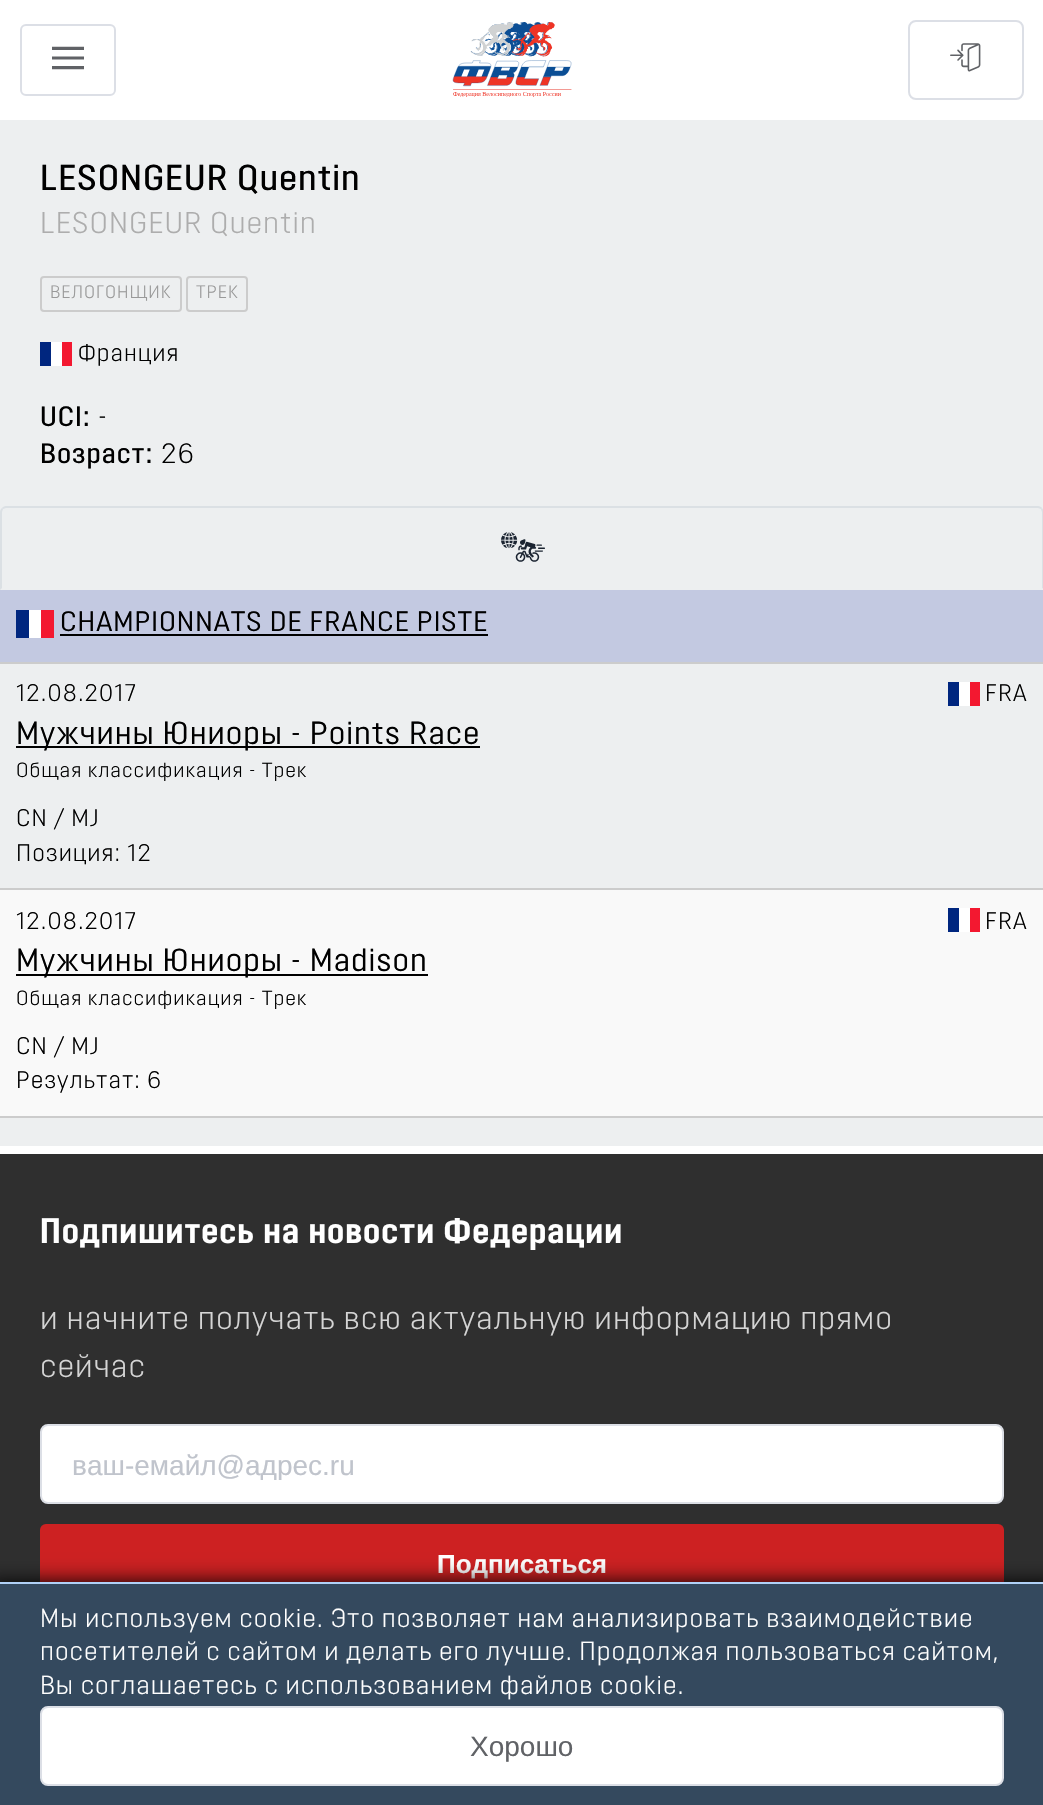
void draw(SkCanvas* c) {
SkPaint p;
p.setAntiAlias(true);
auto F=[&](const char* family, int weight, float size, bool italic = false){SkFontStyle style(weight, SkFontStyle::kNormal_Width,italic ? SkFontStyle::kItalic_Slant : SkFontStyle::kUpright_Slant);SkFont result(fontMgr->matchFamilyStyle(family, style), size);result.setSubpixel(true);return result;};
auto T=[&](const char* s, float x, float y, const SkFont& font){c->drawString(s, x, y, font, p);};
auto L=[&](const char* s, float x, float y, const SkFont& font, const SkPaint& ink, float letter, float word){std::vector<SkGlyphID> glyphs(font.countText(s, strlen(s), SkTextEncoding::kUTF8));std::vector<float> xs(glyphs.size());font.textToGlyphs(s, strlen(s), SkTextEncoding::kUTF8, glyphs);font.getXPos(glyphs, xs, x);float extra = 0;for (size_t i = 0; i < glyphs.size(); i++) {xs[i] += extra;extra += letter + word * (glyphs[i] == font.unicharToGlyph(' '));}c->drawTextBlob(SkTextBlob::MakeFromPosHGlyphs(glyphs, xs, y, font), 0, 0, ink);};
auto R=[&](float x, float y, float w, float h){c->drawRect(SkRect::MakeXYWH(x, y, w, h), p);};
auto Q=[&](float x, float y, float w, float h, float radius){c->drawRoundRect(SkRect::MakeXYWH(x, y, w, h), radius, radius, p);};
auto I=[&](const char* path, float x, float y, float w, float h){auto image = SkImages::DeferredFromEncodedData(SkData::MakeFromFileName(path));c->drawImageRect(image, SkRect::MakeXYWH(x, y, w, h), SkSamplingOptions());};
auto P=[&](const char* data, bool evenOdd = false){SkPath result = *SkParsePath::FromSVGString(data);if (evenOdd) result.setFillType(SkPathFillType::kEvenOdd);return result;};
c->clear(0xffedeff0);
p.setColor(0xffffffff);
R(0,0,1043,120);
p.setStroke(true);
p.setStrokeWidth(2);
p.setColor(0xffdcdfe6);
c->drawRoundRect(SkRect::MakeXYWH(21,25,94,70),5,5,p);
I("1.png",52,46,32,24);
I("2.png",452,22,120,75);
c->drawRoundRect(SkRect::MakeXYWH(909,21,114,78),7,7,p);
I("3.png",950,43,31,29);
auto f1 = F("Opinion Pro",500,36);
p.setStroke(false);
p.setColor(0xff000000);
L("LESONGEUR Quentin",40,190,f1,p,1,0);
auto f2 = F("Opinion Pro",300,30);
p.setColor(0xffadadad);
L("LESONGEUR Quentin",40,233,f2,p,1,0);
p.setStroke(true);
p.setColor(0xffcccccc);
c->drawRoundRect(SkRect::MakeXYWH(41,277,140,34),3,3,p);
auto f3 = F("Opinion Pro",300,18);
p.setStroke(false);
p.setColor(0xff999999);
L("ВЕЛОГОНЩИК",50,298,f3,p,1,0);
p.setStroke(true);
p.setColor(0xffcccccc);
c->drawRoundRect(SkRect::MakeXYWH(187,277,60,34),3,3,p);
p.setStroke(false);
p.setColor(0xff999999);
L("ТРЕК",196,298,f3,p,1,0);
p.setColor(0xffffffff);
R(51,342,11,24);
p.setColor(0xff00267f);
R(40,342,11,24);
p.setColor(0xfff31830);
R(62,342,10,24);
auto f4 = F("Opinion Pro",300,24);
p.setColor(0xff000000);
L("Франция",78,361,f4,p,1,0);
auto f5 = F("Opinion Pro",500,28);
L("UCI:",40,426,f5,p,1,0);
auto f6 = F("Opinion Pro",300,28);
L("-",98,426,f6,p,1,0);
L("Возраст:",40,463,f5,p,1,0);
L("26",161,463,f6,p,1,0);
p.setColor(0xffdbe0e4);
c->drawPath(P("M6 506c-2 0-3 1-4 2l1 1l3-1h1032l3 1l1-1c-1-1-2-2-4-2z"),p);
c->drawPath(P("M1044 590v-79l-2-3l-1 1l1 3v76z"),p);
p.setColor(0xffedeff0);
c->drawPath(P("M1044 590l-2-2h-1040l-2 2z"),p);
p.setColor(0xffdbe0e4);
c->drawPath(P("M0 590l2-2v-76l1-3l-1-1c-1 1-2 2-2 4z"),p);
I("4.png",501,532,44,30);
p.setColor(0xffcccccc);
R(0,662,1043,2);
p.setColor(0xffc3c9e1);
R(0,590,1043,72);
p.setColor(0xffffffff);
R(29,610,12,28);
p.setColor(0xff00267f);
R(16,610,13,28);
p.setColor(0xfff31830);
R(41,610,13,28);
auto f7 = F("Opinion Pro",400,28.1);
p.setColor(0xff000000);
L("CHAMPIONNATS DE FRANCE PISTE",60,631,f7,p,1,0);
R(60,634,428,2);
p.setColor(0xffcccccc);
R(0,888,1043,2);
p.setColor(0xff000000);
L("12.08.2017",16,701,f4,p,1,0);
p.setColor(0xffffffff);
R(959,682,11,24);
p.setColor(0xff00267f);
R(948,682,11,24);
p.setColor(0xfff31830);
R(970,682,10,24);
p.setColor(0xff000000);
L("FRA",985,701,f4,p,1,0);
R(16,746,464,2);
auto f8 = F("Opinion Pro",400,32);
L("Мужчины Юниоры - Points Race",16,744,f8,p,1,0);
auto f9 = F("Opinion Pro",300,20.4);
L("Общая классификация - Трек",16,777,f9,p,1,0);
L("CN / MJ",16,826,f4,p,1,0);
L("Позиция: 12",16,861,f4,p,1,0);
p.setColor(0xfff9f9f9);
R(0,890,1043,226);
p.setColor(0xffcccccc);
R(0,1116,1043,2);
p.setColor(0xff000000);
L("12.08.2017",16,929,f4,p,1,0);
p.setColor(0xffffffff);
R(959,908,11,24);
p.setColor(0xff00267f);
R(948,908,11,24);
p.setColor(0xfff31830);
R(970,908,10,24);
p.setColor(0xff000000);
L("FRA",985,929,f4,p,1,0);
R(16,974,412,2);
L("Мужчины Юниоры - Madison",16,971,f8,p,1,0);
L("Общая классификация - Трек",16,1005,f9,p,1,0);
L("CN / MJ",16,1054,f4,p,1,0);
L("Результат: 6",16,1088,f4,p,1,0);
p.setColor(0xff2f2f2f);
R(0,1154,1043,428);
p.setColor(0xffffffff);
R(0,1146,1043,8);
auto f10 = F("Opinion Pro",700,35.25);
L("Подпишитесь на новости Федерации",40,1243,f10,p,1,0);
auto f11 = F("Opinion Pro",300,32);
p.setColor(0xffd5d5d5);
L("и начните получать всю актуальную информацию прямо",40,1329,f11,p,1,0);
L("сейчас",40,1377,f11,p,1,0);
p.setColor(0xffffffff);
c->drawRoundRect(SkRect::MakeXYWH(41,1425,962,78),7,7,p);
p.setStroke(true);
p.setColor(0xffdcdfe6);
c->drawRoundRect(SkRect::MakeXYWH(41,1425,962,78),7,7,p);
c->save();
c->clipRect(SkRect::MakeXYWH(72,1448,900,32));
auto f12 = F("Liberation Sans",400,28);
p.setStroke(false);
p.setColor(0xffc0c4cc);
T("ваш-емайл@адрес.ru",72,1475,f12);
c->restore();
p.setColor(0xffcd2122);
Q(40,1524,964,80,6);
auto f13 = F("Liberation Sans",700,26);
p.setColor(0xffffffff);
T("Подписаться",437,1573,f13);
p.setColor(0xff000000);
p.setMaskFilter(SkMaskFilter::MakeBlur(kNormal_SkBlurStyle, 10));
c->drawRect(SkRect::MakeXYWH(-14,1582,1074,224),p);
p.setMaskFilter(nullptr);
p.setColor(0xff34495e);
R(0,1584,1043,221);
p.setColor(0xffb0d1f7);
R(0,1582,1043,2);
auto f14 = F("Opinion Pro",300,26);
p.setColor(0xffffffff);
L("Мы используем cookie. Это позволяет нам анализировать взаимодействие",40,1627,f14,p,1,0);
L("посетителей с сайтом и делать его лучше. Продолжая пользоваться сайтом,",40,1660,f14,p,1,0);
L("Вы соглашаетесь с использованием файлов cookie.",40,1694,f14,p,1,0);
c->drawRoundRect(SkRect::MakeXYWH(41,1707,962,78),7,7,p);
p.setStroke(true);
p.setColor(0xffdcdfe6);
c->drawRoundRect(SkRect::MakeXYWH(41,1707,962,78),7,7,p);
p.setStroke(false);
p.setColor(0xff606266);
T("Хорошо",470,1756,f12);
}
